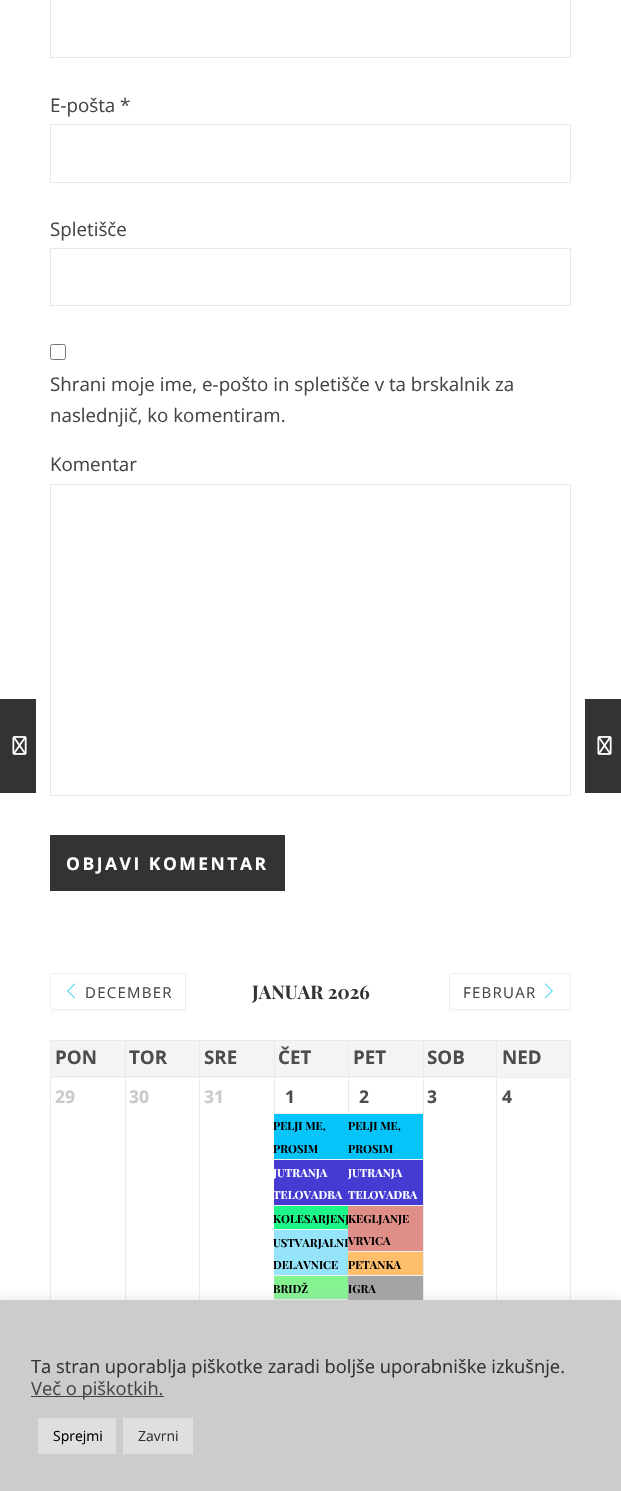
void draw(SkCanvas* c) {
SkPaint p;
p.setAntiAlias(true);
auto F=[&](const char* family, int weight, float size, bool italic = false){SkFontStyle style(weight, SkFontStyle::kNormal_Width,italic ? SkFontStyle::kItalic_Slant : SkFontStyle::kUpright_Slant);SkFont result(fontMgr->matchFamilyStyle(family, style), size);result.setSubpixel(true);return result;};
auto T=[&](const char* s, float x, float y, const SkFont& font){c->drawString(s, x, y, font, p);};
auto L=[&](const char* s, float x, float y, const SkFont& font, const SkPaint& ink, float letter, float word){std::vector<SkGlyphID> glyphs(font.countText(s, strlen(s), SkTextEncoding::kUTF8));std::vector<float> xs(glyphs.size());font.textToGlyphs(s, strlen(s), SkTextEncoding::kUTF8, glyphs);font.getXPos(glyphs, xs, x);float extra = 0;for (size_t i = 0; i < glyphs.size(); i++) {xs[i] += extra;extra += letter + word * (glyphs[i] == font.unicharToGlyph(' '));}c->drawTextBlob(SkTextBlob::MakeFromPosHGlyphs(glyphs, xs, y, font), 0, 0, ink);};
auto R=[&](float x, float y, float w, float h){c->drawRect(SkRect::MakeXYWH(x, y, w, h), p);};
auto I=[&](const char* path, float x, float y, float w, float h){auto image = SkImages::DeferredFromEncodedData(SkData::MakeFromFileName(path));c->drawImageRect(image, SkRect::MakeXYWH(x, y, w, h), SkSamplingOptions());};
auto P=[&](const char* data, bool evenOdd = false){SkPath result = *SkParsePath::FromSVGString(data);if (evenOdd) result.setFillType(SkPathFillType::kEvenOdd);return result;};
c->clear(0xffffffff);
p.setColor(0xff333333);
R(0,699,36,94);
I("1.png",12,736,15,19);
p.setStroke(true);
p.setStrokeWidth(1);
p.setColor(0xffe8e8e8);
c->drawRect(SkRect::MakeXYWH(50.5,-.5,520,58),p);
auto f1 = F("Open Sans",400,18.75);
p.setStroke(false);
p.setColor(0xff464646);
T("E-pošta *",50,112,f1);
p.setStroke(true);
p.setColor(0xffe8e8e8);
c->drawRect(SkRect::MakeXYWH(50.5,124.5,520,58),p);
p.setStroke(false);
p.setColor(0xff464646);
T("Spletišče",50,236,f1);
p.setStroke(true);
p.setColor(0xffe8e8e8);
c->drawRect(SkRect::MakeXYWH(50.5,248.5,520,57),p);
p.setColor(0xff767676);
c->drawRoundRect(SkRect::MakeXYWH(50.5,344.5,15,15),2,2,p);
p.setStroke(false);
p.setColor(0xff464646);
T("Shrani moje ime, e-pošto in spletišče v ta brskalnik za",50,391,f1);
T("naslednjič, ko komentiram.",50,422,f1);
T("Komentar",50,471,f1);
p.setStroke(true);
p.setColor(0xffe8e8e8);
c->drawRect(SkRect::MakeXYWH(50.5,484.5,520,311),p);
p.setStroke(false);
p.setColor(0xff333333);
R(50,835,235,56);
auto f2 = F("Open Sans",700,17.5);
p.setColor(0xffffffff);
L("OBJAVI KOMENTAR",66,870,f2,p,2.5,0);
p.setColor(0xff333333);
R(585,699,36,94);
I("1.png",597,736,15,19);
p.setColor(0xfffbfbfb);
c->drawPath(P("M50 1008v2c0 2 1 3 2 3h132c1 0 2-1 2-3v-1c0 0-1 1-2 1h-132c-1 0-2-1-2-2z"),p);
p.setStroke(true);
p.setColor(0xffeeeeee);
c->drawRoundRect(SkRect::MakeXYWH(50.5,973.5,135,36),2,2,p);
I("2.png",67,983,9,16);
auto f3 = F("Open Sans",400,15);
p.setStroke(false);
p.setColor(0xff464646);
L("DECEMBER",85,998,f3,p,1.25,0);
auto f4 = F("Playfair Display",700,18.75);
p.setColor(0xff333333);
T("JANUAR 2026",252,999,f4);
p.setColor(0xfffbfbfb);
c->drawPath(P("M449 1009v1c0 2 1 3 3 3h116c2 0 3-1 3-3v-1c0 0-1 1-2 1h-118c-1 0-2-1-2-1z"),p);
p.setStroke(true);
p.setColor(0xffeeeeee);
c->drawRoundRect(SkRect::MakeXYWH(449.5,973.5,121,36),2,2,p);
p.setStroke(false);
p.setColor(0xff464646);
L("FEBRUAR",463,998,f3,p,1.25,0);
I("3.png",544,983,9,16);
p.setColor(0xfff4f4f4);
R(51,1041,74,37);
p.setColor(0xffeaeaea);
R(50,1040,446,1);
R(50,1076,75,1);
R(50,1040,1,260);
auto f5 = F("Open Sans",700,18.75);
p.setColor(0xff4d4d4d);
T("PON",55,1064,f5);
p.setColor(0xfff4f4f4);
R(126,1041,73,37);
p.setColor(0xffeaeaea);
R(125,1076,74,1);
R(125,1040,1,260);
p.setColor(0xff4d4d4d);
T("TOR",129,1064,f5);
p.setColor(0xfff4f4f4);
R(200,1041,74,37);
p.setColor(0xffeaeaea);
R(199,1076,75,1);
R(199,1040,1,260);
p.setColor(0xff4d4d4d);
T("SRE",204,1064,f5);
p.setColor(0xfff4f4f4);
R(275,1041,73,37);
p.setColor(0xffeaeaea);
R(274,1076,74,1);
R(274,1040,1,73);
p.setColor(0xff4d4d4d);
T("ČET",278,1064,f5);
p.setColor(0xfff4f4f4);
R(349,1041,74,37);
p.setColor(0xffeaeaea);
R(348,1076,75,1);
R(348,1040,1,73);
p.setColor(0xff4d4d4d);
T("PET",353,1064,f5);
p.setColor(0xfff4f4f4);
R(424,1041,72,37);
p.setColor(0xffeaeaea);
R(423,1076,73,1);
R(423,1040,1,38);
p.setColor(0xff4d4d4d);
T("SOB",427,1064,f5);
p.setColor(0xfff4f4f4);
c->drawRect(SkRect::MakeXYWH(496.5,1040.5,74,37),p);
p.setStroke(true);
p.setColor(0xffeaeaea);
c->drawRect(SkRect::MakeXYWH(496.5,1040.5,74,37),p);
p.setStroke(false);
p.setColor(0xff4d4d4d);
T("NED",502,1064,f5);
p.setColor(0xffcacaca);
T("29",55,1103,f2);
T("30",129,1103,f2);
T("31",204,1103,f2);
p.setColor(0xff4d4d4d);
T("1",285,1103,f2);
p.setColor(0xff04c4f9);
R(274,1114,149,45);
p.setColor(0xffefefef);
R(274,1113,150,1);
auto f6 = F("Playfair Display",700,11.25);
p.setColor(0xff000000);
T("PELJI ME,",273,1130,f6);
T("PROSIM",273,1153,f6);
p.setColor(0xff453bd3);
R(274,1160,149,45);
p.setColor(0xffefefef);
R(274,1159,150,1);
p.setColor(0xffffffff);
T("JUTRANJA",273,1177,f6);
T("TELOVADBA",273,1199,f6);
p.setColor(0xff1df78a);
R(274,1206,74,23);
p.setColor(0xffefefef);
R(274,1205,150,1);
p.setColor(0xff000000);
T("KOLESARJENJ",273,1223,f6);
p.setColor(0xff95e4f9);
R(274,1230,74,45);
p.setColor(0xffefefef);
R(274,1229,75,1);
p.setColor(0xff000000);
T("USTVARJALNE",273,1247,f6);
T("DELAVNICE",273,1269,f6);
p.setColor(0xff84f491);
R(274,1276,74,23);
p.setColor(0xffefefef);
R(274,1275,150,1);
p.setColor(0xff000000);
T("BRIDŽ",273,1293,f6);
p.setColor(0xffefefef);
R(274,1299,75,1);
p.setColor(0xff4d4d4d);
T("2",359,1103,f2);
p.setColor(0xff000000);
T("PELJI ME,",348,1130,f6);
T("PROSIM",348,1153,f6);
p.setColor(0xffffffff);
T("JUTRANJA",348,1177,f6);
T("TELOVADBA",348,1199,f6);
p.setColor(0xffe08e88);
R(348,1206,75,45);
p.setColor(0xff000000);
T("KEGLJANJE",348,1223,f6);
T("VRVICA",348,1245,f6);
p.setColor(0xffffbe6b);
R(348,1252,75,23);
p.setColor(0xffefefef);
R(348,1251,76,1);
p.setColor(0xff000000);
T("PETANKA",348,1269,f6);
p.setColor(0xffa3a3a3);
R(348,1276,75,24);
p.setColor(0xff000000);
T("IGRA",348,1293,f6);
p.setColor(0xffeaeaea);
R(423,1078,1,222);
p.setColor(0xff4d4d4d);
T("3",427,1103,f2);
p.setColor(0xffeaeaea);
R(570,1078,1,222);
R(496,1078,1,222);
p.setColor(0xff4d4d4d);
T("4",502,1103,f2);
p.setColor(0x4dacabab);
p.setMaskFilter(SkMaskFilter::MakeBlur(kNormal_SkBlurStyle, 6));
c->drawRect(SkRect::MakeXYWH(0,1299,621,191),p);
p.setMaskFilter(nullptr);
p.setColor(0xffcccccc);
R(0,1300,621,191);
auto f7 = F("Open Sans",400,18.3);
p.setColor(0xff333333);
T("Ta stran uporablja piškotke zaradi boljše uporabniške izkušnje.",31,1373,f7);
p.setColor(0xff444444);
R(31,1396,133,1);
p.setColor(0xff464646);
T("Več o piškotkih.",31,1395,f7);
p.setColor(0xffdedfe0);
R(38,1418,78,36);
auto f8 = F("Open Sans",400,14);
p.setColor(0xff000000);
T("Sprejmi",53,1441,f8);
p.setColor(0xffdedfe0);
R(123,1418,70,36);
p.setColor(0xff333333);
T("Zavrni",138,1441,f8);
}
